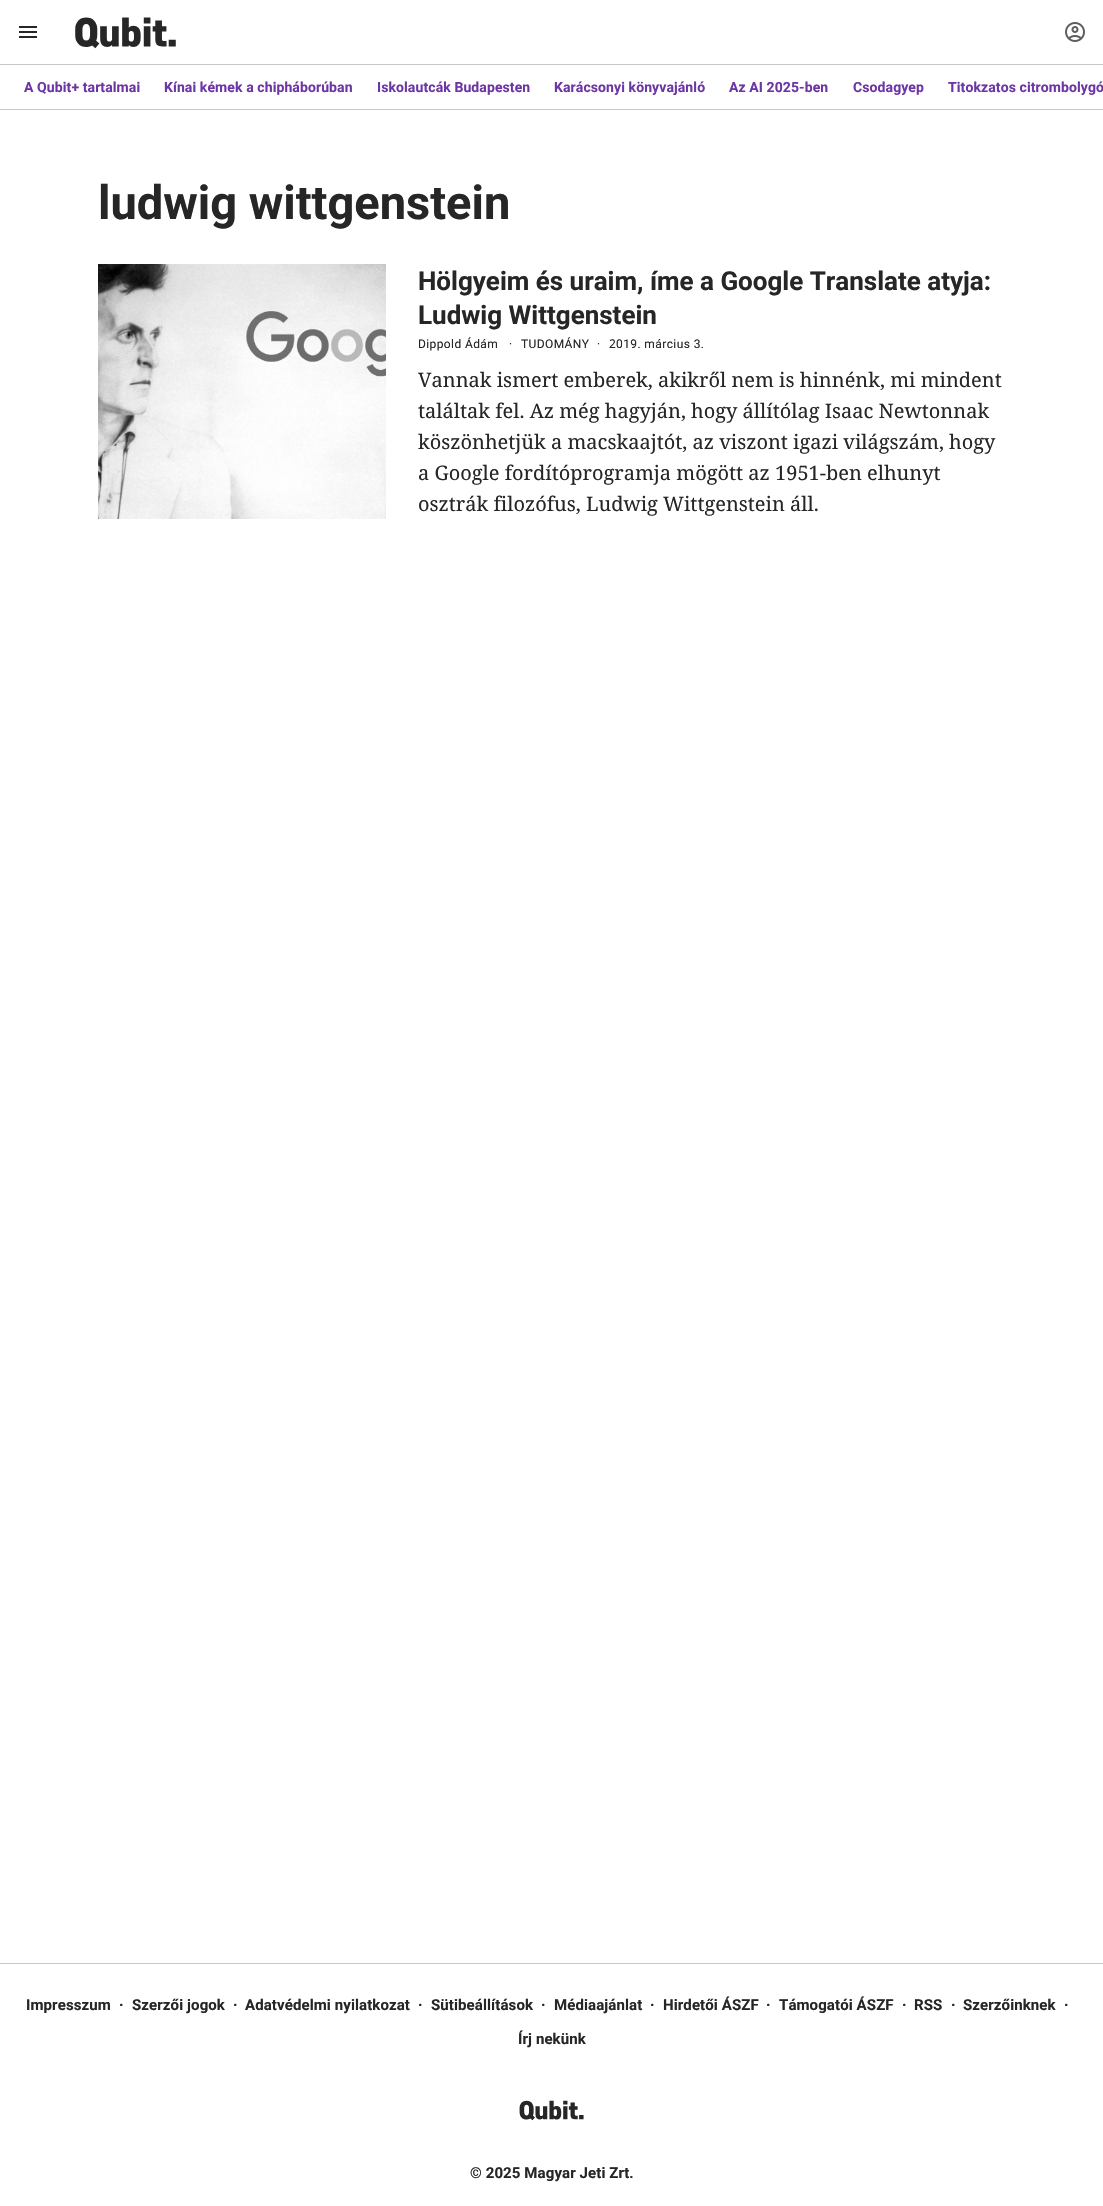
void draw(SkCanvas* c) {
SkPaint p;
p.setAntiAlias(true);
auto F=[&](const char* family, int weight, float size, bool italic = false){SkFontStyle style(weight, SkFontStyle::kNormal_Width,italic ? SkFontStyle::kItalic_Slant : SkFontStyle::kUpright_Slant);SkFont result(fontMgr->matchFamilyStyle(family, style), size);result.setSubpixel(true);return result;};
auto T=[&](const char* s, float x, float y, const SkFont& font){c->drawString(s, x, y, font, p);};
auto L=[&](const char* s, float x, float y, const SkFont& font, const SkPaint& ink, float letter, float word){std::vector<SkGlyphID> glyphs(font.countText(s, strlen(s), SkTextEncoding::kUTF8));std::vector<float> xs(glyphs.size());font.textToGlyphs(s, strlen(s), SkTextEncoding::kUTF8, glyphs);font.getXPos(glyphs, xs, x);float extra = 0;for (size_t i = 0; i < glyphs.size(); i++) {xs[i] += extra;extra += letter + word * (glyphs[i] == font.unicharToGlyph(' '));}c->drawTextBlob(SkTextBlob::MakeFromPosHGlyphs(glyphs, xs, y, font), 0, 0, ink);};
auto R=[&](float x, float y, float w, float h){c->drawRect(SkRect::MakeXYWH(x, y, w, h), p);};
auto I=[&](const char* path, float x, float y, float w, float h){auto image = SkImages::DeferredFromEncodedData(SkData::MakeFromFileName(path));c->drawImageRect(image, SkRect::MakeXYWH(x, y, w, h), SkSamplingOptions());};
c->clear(0xffffffff);
I("1.png",19,26,18,12);
I("2.png",75,17,101,32);
I("3.png",1065,22,20,20);
p.setColor(0xffc6c6c6);
R(0,64,1103,1);
auto f1 = F("Roboto",700,14);
p.setColor(0xff6d35a5);
L("A Qubit+ tartalmai",24,92,f1,p,.1,0);
L("Kínai kémek a chipháborúban",164,92,f1,p,.1,0);
L("Iskolautcák Budapesten",377,92,f1,p,.1,0);
L("Karácsonyi könyvajánló",554,92,f1,p,.1,0);
L("Az AI 2025-ben",729,92,f1,p,.1,0);
L("Csodagyep",853,92,f1,p,.1,0);
L("Titokzatos citrombolygó",948,92,f1,p,.1,0);
p.setColor(0xffc6c6c6);
R(0,109,1103,1);
auto f2 = F("Roboto",700,47);
p.setColor(0xff262626);
T("ludwig wittgenstein",98,219,f2);
I("4.png",98,264,288,255);
auto f3 = F("Roboto",700,26);
T("Hölgyeim és uraim, íme a Google Translate atyja:",418,290,f3);
T("Ludwig Wittgenstein",418,324,f3);
auto f4 = F("Roboto",400,12);
L("Dippold Ádám",418,348,f4,p,.4,0);
L("·",509,348,f4,p,.4,0);
L("TUDOMÁNY",521,348,f4,p,.4,0);
L("·",597,348,f4,p,.4,0);
auto f5 = F("Noto Sans",400,12);
L("2",609,348,f5,p,.4,0);
L("019. március 3.",616,348,f4,p,.4,0);
auto f6 = F("Noto Serif",400,20);
T("Vannak ismert emberek, akikről nem is hinnénk, mi mindent",418,387,f6);
T("találtak fel. Az még hagyján, hogy állítólag Isaac Newtonnak",418,418,f6);
T("köszönhetjük a macskaajtót, az viszont igazi világszám, hogy",418,449,f6);
T("a Google fordítóprogramja mögött az 1951-ben elhunyt",418,480,f6);
T("osztrák filozófus, Ludwig Wittgenstein áll.",418,511,f6);
p.setColor(0xffc6c6c6);
R(0,1963,1103,1);
auto f7 = F("Roboto",700,15);
p.setColor(0xff262626);
L("Impresszum",26,2010,f7,p,.1,0);
L("·",119,2010,f7,p,.1,0);
L("Szerzői jogok",132,2010,f7,p,.1,0);
L("·",233,2010,f7,p,.1,0);
L("Adatvédelmi nyilatkozat",245,2010,f7,p,.1,0);
L("·",418,2010,f7,p,.1,0);
L("Sütibeállítások",431,2010,f7,p,.1,0);
L("·",541,2010,f7,p,.1,0);
L("Médiaajánlat",554,2010,f7,p,.1,0);
L("·",650,2010,f7,p,.1,0);
L("Hirdetői ÁSZF",663,2010,f7,p,.1,0);
L("·",766,2010,f7,p,.1,0);
L("Támogatói ÁSZF",779,2010,f7,p,.1,0);
L("·",902,2010,f7,p,.1,0);
L("RSS",914,2010,f7,p,.1,0);
L("·",951,2010,f7,p,.1,0);
L("Szerzőinknek",963,2010,f7,p,.1,0);
L("·",1064,2010,f7,p,.1,0);
L("Írj nekünk",518,2044,f7,p,.1,0);
I("5.png",519,2100,65,21);
L("© 2025 Magyar Jeti Zrt.",470,2178,f7,p,.1,0);
}
